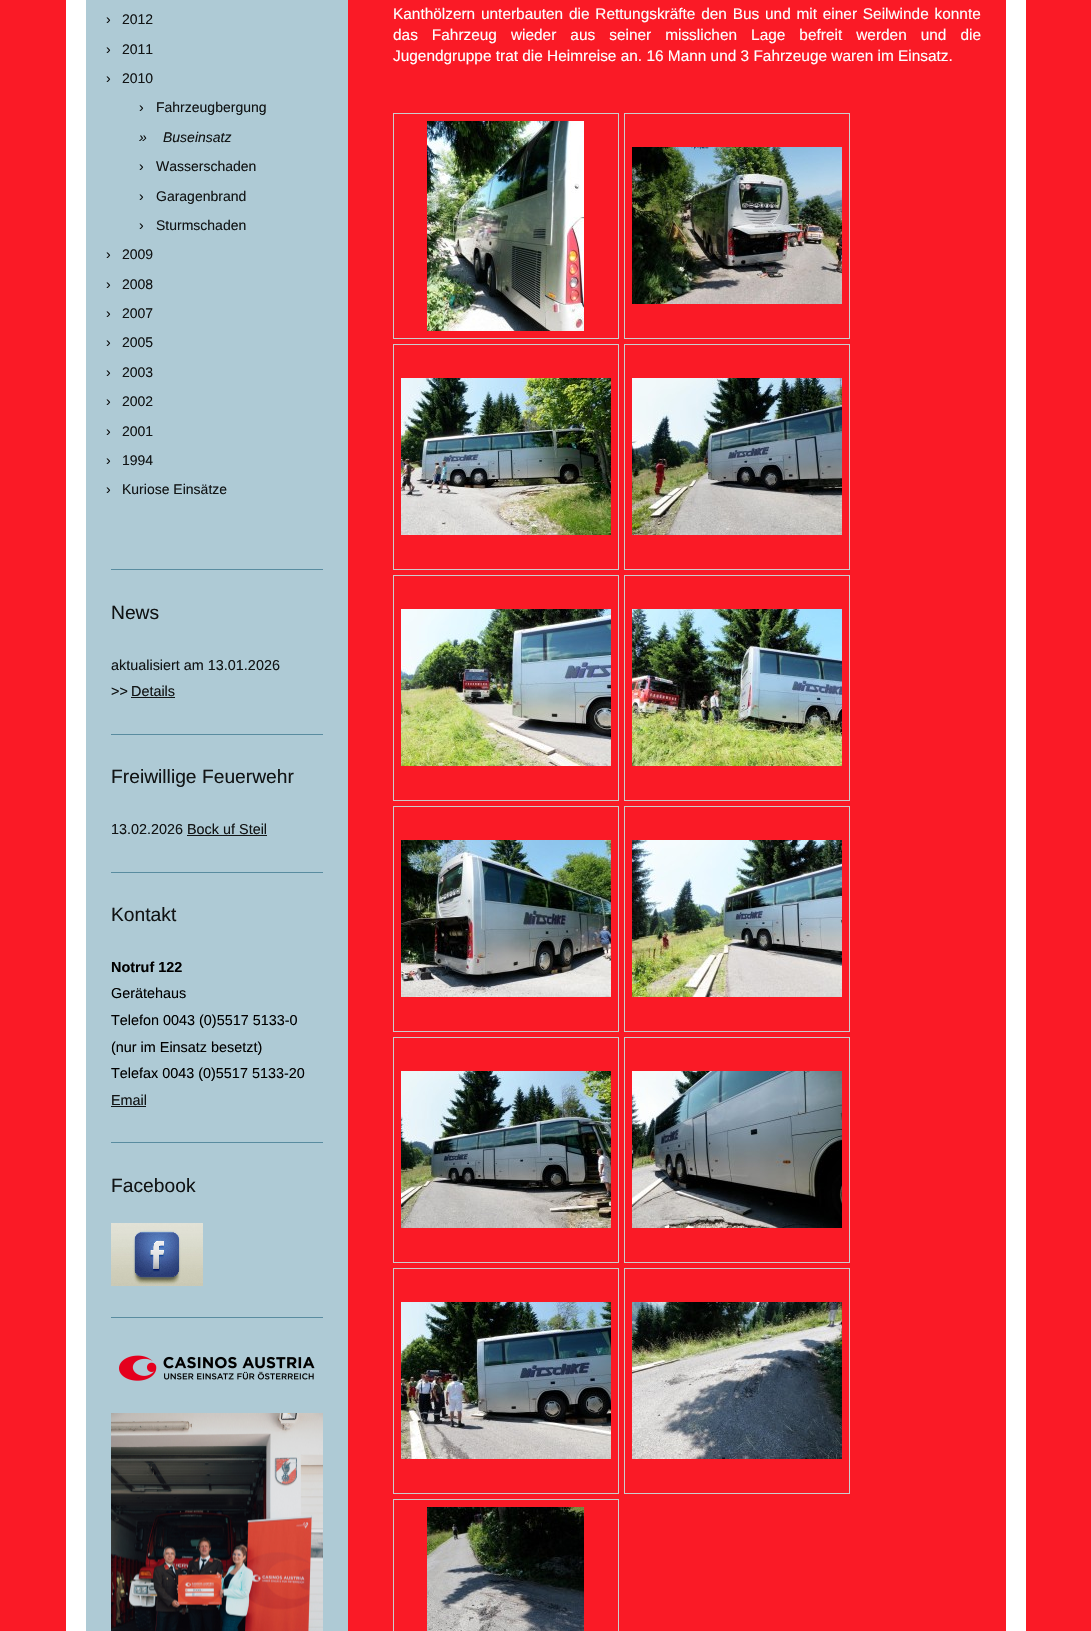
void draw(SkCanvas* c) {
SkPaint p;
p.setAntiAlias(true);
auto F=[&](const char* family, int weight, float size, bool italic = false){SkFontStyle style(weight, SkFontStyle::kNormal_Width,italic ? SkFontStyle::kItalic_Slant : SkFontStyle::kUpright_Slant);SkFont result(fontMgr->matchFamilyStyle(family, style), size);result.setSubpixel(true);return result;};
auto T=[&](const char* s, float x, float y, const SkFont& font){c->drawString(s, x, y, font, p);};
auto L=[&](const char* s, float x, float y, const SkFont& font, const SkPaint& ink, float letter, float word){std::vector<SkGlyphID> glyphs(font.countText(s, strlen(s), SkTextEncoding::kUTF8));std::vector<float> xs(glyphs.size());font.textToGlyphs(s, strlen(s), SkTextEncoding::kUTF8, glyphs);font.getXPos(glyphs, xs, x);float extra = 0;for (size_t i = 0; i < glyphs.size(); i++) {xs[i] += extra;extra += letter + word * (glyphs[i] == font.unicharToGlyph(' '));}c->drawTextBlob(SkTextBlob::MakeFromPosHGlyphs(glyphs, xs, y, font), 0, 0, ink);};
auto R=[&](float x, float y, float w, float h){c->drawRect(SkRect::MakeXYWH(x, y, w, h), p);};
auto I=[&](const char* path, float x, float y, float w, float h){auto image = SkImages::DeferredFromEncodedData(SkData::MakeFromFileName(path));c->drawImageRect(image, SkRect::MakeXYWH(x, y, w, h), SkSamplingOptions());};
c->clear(0xfffa1a26);
p.setColor(0xffffffff);
R(66,0,960,1631);
p.setColor(0xfffa1a26);
R(348,0,658,1631);
p.setColor(0xffaecad5);
R(86,0,262,1631);
auto f1 = F("Liberation Sans",400,15.4);
p.setColor(0xffffffff);
L("Kanthölzern unterbauten die Rettungskräfte den Bus und mit einer Seilwinde konnte",393,19,f1,p,0,1.5);
L("das Fahrzeug wieder aus seiner misslichen Lage befreit werden und die",393,40,f1,p,0,9.75);
T("Jugendgruppe trat die Heimreise an. 16 Mann und 3 Fahrzeuge waren im Einsatz.",393,61,f1);
p.setStroke(true);
p.setStrokeWidth(1);
p.setColor(0xffcccccc);
c->drawRect(SkRect::MakeXYWH(393.5,113.5,225,225),p);
I("1.png",427,121,157,210);
c->drawRect(SkRect::MakeXYWH(624.5,113.5,225,225),p);
I("2.png",632,147,210,157);
c->drawRect(SkRect::MakeXYWH(393.5,344.5,225,225),p);
I("3.png",401,378,210,157);
c->drawRect(SkRect::MakeXYWH(624.5,344.5,225,225),p);
I("4.png",632,378,210,157);
c->drawRect(SkRect::MakeXYWH(393.5,575.5,225,225),p);
I("5.png",401,609,210,157);
c->drawRect(SkRect::MakeXYWH(624.5,575.5,225,225),p);
I("6.png",632,609,210,157);
c->drawRect(SkRect::MakeXYWH(393.5,806.5,225,225),p);
I("7.png",401,840,210,157);
c->drawRect(SkRect::MakeXYWH(624.5,806.5,225,225),p);
I("8.png",632,840,210,157);
c->drawRect(SkRect::MakeXYWH(393.5,1037.5,225,225),p);
I("9.png",401,1071,210,157);
c->drawRect(SkRect::MakeXYWH(624.5,1037.5,225,225),p);
I("10.png",632,1071,210,157);
c->drawRect(SkRect::MakeXYWH(393.5,1268.5,225,225),p);
I("11.png",401,1302,210,157);
c->drawRect(SkRect::MakeXYWH(624.5,1268.5,225,225),p);
I("12.png",632,1302,210,157);
c->drawRect(SkRect::MakeXYWH(393.5,1499.5,225,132),p);
I("13.png",427,1507,157,124);
auto f2 = F("Liberation Sans",400,14);
p.setStroke(false);
p.setColor(0xff111415);
T("›",106,24,f2);
T("2012",122,24,f2);
T("›",106,54,f2);
T("2011",122,54,f2);
T("›",106,83,f2);
T("2010",122,83,f2);
T("›",139,112,f2);
T("Fahrzeugbergung",156,112,f2);
auto f3 = F("Liberation Sans",400,14,true);
T("»",139,142,f3);
T("Buseinsatz",163,142,f3);
T("›",139,171,f2);
T("Wasserschaden",156,171,f2);
T("›",139,201,f2);
T("Garagenbrand",156,201,f2);
T("›",139,230,f2);
T("Sturmschaden",156,230,f2);
T("›",106,259,f2);
T("2009",122,259,f2);
T("›",106,289,f2);
T("2008",122,289,f2);
T("›",106,318,f2);
T("2007",122,318,f2);
T("›",106,347,f2);
T("2005",122,347,f2);
T("›",106,377,f2);
T("2003",122,377,f2);
T("›",106,406,f2);
T("2002",122,406,f2);
T("›",106,436,f2);
T("2001",122,436,f2);
T("›",106,465,f2);
T("1994",122,465,f2);
T("›",106,494,f2);
T("Kuriose Einsätze",122,494,f2);
p.setColor(0xff598ca0);
R(111,569,212,1);
auto f4 = F("Liberation Sans",400,19.25);
p.setColor(0xff111415);
T("News",111,619,f4);
auto f5 = F("Liberation Sans",400,14.4);
T("aktualisiert am 13.01.2026",111,670,f5);
T(">>",111,696,f5);
T("Details",131,696,f5);
p.setColor(0xff131718);
R(131,697,44,1);
p.setColor(0xff598ca0);
R(111,734,212,1);
p.setColor(0xff111415);
T("Freiwillige Feuerwehr",111,783,f4);
T("13.02.2026",111,834,f5);
T("Bock uf Steil",187,834,f5);
p.setColor(0xff131718);
R(187,835,80,1);
p.setColor(0xff598ca0);
R(111,872,212,1);
p.setColor(0xff111415);
T("Kontakt",111,921,f4);
auto f6 = F("Liberation Sans",700,14.4);
p.setColor(0xff000000);
T("Notruf 122",111,972,f6);
T("Gerätehaus",111,998,f5);
T("Telefon 0043 (0)5517 5133-0",111,1025,f5);
T("(nur im Einsatz besetzt)",111,1052,f5);
T("Telefax 0043 (0)5517 5133-20",111,1078,f5);
p.setColor(0xff111415);
T("Email",111,1105,f5);
p.setColor(0xff131718);
R(111,1106,35,1);
p.setColor(0xff598ca0);
R(111,1142,212,1);
p.setColor(0xff111415);
T("Facebook",111,1192,f4);
I("14.png",111,1223,92,63);
p.setColor(0xff598ca0);
R(111,1317,212,1);
I("15.png",119,1355,196,26);
I("16.png",111,1413,212,218);
}
